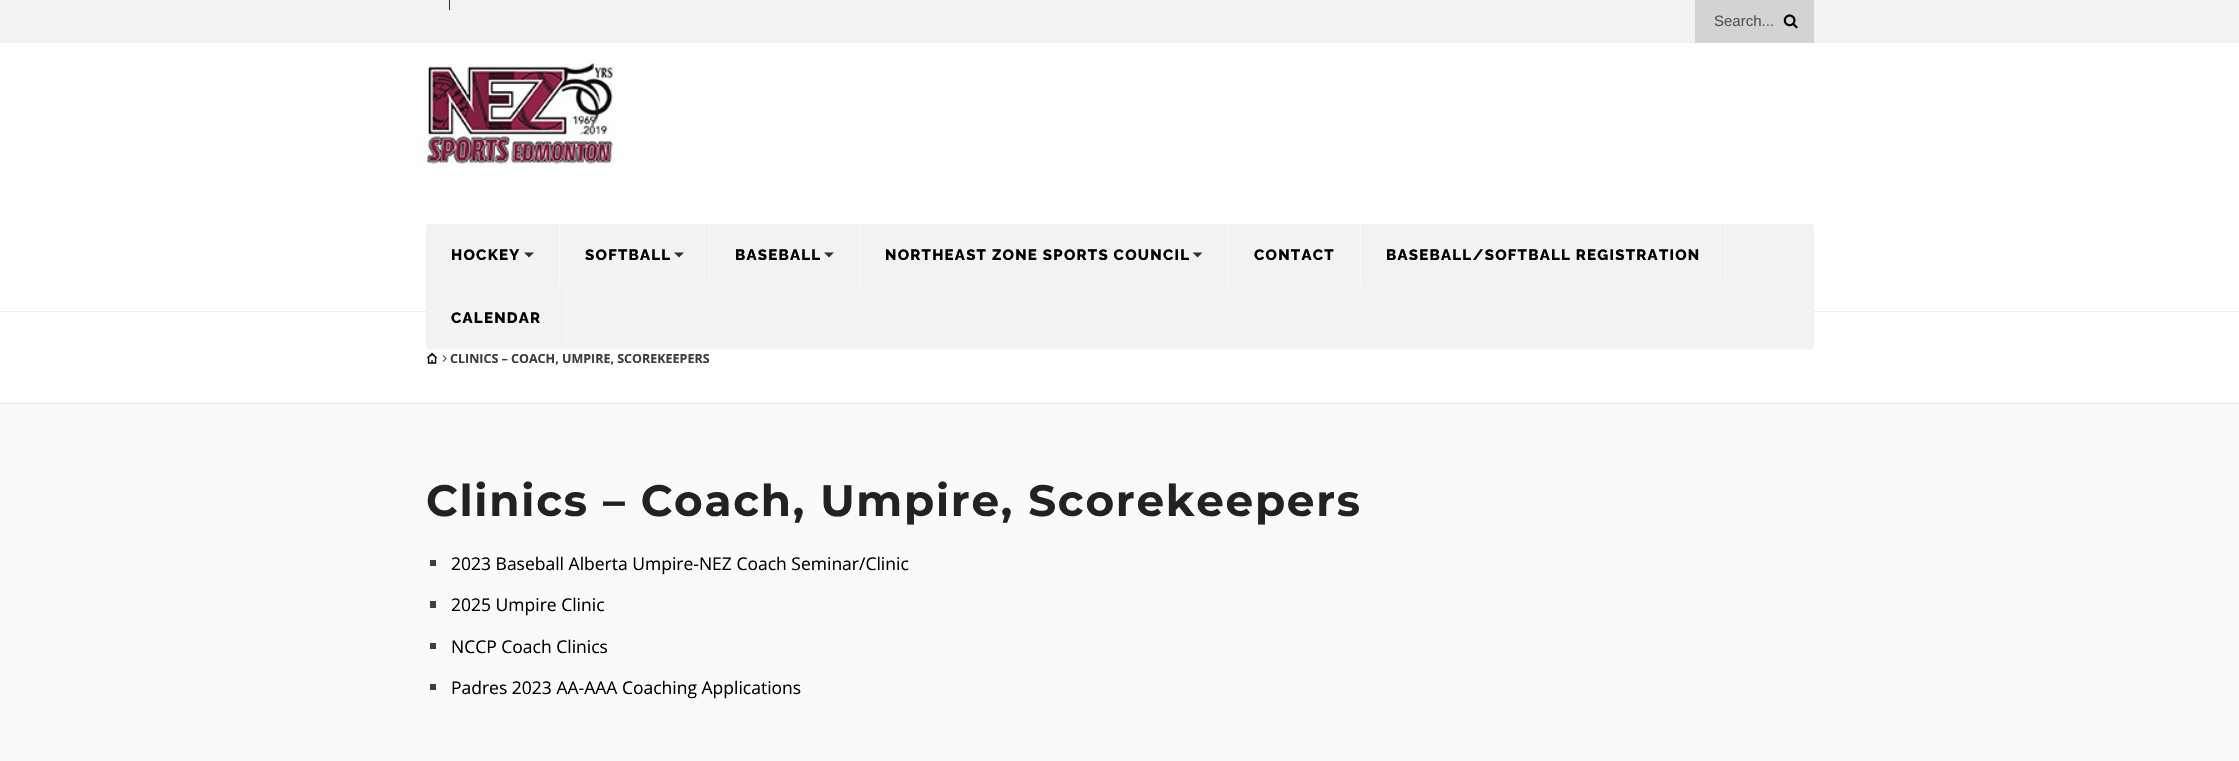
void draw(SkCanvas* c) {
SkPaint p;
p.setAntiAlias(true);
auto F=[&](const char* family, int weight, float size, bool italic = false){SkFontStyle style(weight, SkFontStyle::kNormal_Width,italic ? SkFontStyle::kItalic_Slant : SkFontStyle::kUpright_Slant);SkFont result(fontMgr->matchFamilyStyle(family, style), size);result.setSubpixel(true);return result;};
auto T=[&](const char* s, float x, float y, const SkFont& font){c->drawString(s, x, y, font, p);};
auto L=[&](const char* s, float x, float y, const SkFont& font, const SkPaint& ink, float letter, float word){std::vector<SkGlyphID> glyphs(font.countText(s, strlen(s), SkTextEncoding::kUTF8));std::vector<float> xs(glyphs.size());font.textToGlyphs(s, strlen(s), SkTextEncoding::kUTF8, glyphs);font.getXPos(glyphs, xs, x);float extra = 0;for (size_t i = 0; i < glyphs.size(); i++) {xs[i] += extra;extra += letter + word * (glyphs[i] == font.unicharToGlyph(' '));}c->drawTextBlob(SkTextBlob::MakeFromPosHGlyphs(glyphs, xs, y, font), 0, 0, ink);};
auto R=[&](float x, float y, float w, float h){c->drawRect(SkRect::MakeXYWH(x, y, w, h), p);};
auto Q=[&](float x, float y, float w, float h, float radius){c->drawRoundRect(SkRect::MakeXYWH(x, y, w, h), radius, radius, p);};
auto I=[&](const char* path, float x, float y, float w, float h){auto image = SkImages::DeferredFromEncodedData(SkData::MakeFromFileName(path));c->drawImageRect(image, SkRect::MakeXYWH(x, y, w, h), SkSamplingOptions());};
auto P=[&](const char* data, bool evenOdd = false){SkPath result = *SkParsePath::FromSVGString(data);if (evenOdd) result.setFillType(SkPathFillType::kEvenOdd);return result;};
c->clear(0xfffafafa);
p.setColor(0xfff2f2f2);
R(0,0,2239,43);
p.setColor(0xff303030);
R(449,0,1,10);
p.setColor(0xffd3d3d3);
R(1695,0,119,43);
auto f1 = F("Liberation Sans",400,15);
p.setColor(0xff545454);
T("Search...",1714,26,f1);
I("1.png",1783,14,15,15);
p.setColor(0xffffffff);
R(0,43,2239,268);
I("2.png",426,62,188,102);
R(0,312,2239,91);
p.setColor(0xffefefef);
R(0,311,2239,1);
p.setColor(0xfff2f2f2);
Q(426,224,1388,125,2.5);
p.setColor(0xfff9f9f9);
R(559,224,1,62);
auto f2 = F("Raleway",800,15);
p.setColor(0xff000000);
L("HOCKEY",451,260,f2,p,1.25,0);
p.setColor(0xff303030);
c->drawPath(P("M524 252.5h10l-5 5z"),p);
p.setColor(0xfff9f9f9);
R(709,224,1,62);
p.setColor(0xff000000);
L("SOFTBALL",585,260,f2,p,1.25,0);
p.setColor(0xff303030);
c->drawPath(P("M674 252.5h10l-5 5z"),p);
p.setColor(0xfff9f9f9);
R(859,224,1,62);
p.setColor(0xff000000);
L("BASEBALL",735,260,f2,p,1.25,0);
p.setColor(0xff303030);
c->drawPath(P("M824 252.5h10l-5 5z"),p);
p.setColor(0xfff9f9f9);
R(1228,224,1,62);
p.setColor(0xff000000);
L("NORTHEAST ZONE SPORTS COUNCIL",885,260,f2,p,1.25,0);
p.setColor(0xff303030);
c->drawPath(P("M1192.5 252.5h10l-5 5z"),p);
p.setColor(0xfff9f9f9);
R(1360,224,1,62);
p.setColor(0xff000000);
L("CONTACT",1254,260,f2,p,1.25,0);
p.setColor(0xfff9f9f9);
R(1725,224,1,62);
p.setColor(0xff000000);
L("BASEBALL/SOFTBALL REGISTRATION",1386,260,f2,p,1.25,0);
p.setColor(0xfff9f9f9);
R(566,286,1,63);
p.setColor(0xff000000);
L("CALENDAR",451,323,f2,p,1.25,0);
p.setColor(0xffefefef);
R(0,403,2239,1);
I("3.png",426,352,12,12);
I("4.png",442,355,5,7);
auto f3 = F("Open Sans",700,12.5);
p.setColor(0xff3d3d3d);
T("CLINICS – COACH, UMPIRE, SCOREKEEPERS",450,363,f3);
auto f4 = F("Montserrat",700,43.75);
p.setColor(0xff222222);
L("Clinics – Coach, Umpire, Scorekeepers",426,516,f4,p,1.75,0);
p.setColor(0xff3f3f3f);
R(430,560,6,6);
auto f5 = F("Open Sans",400,17.5);
p.setColor(0xff000000);
T("2023 Baseball Alberta Umpire-NEZ Coach Seminar/Clinic",451,570,f5);
p.setColor(0xff3f3f3f);
R(430,601,6,7);
p.setColor(0xff000000);
T("2025 Umpire Clinic",451,611,f5);
p.setColor(0xff3f3f3f);
R(430,643,6,6);
p.setColor(0xff000000);
T("NCCP Coach Clinics",451,653,f5);
p.setColor(0xff3f3f3f);
R(430,684,6,6);
p.setColor(0xff000000);
T("Padres 2023 AA-AAA Coaching Applications",451,694,f5);
}
